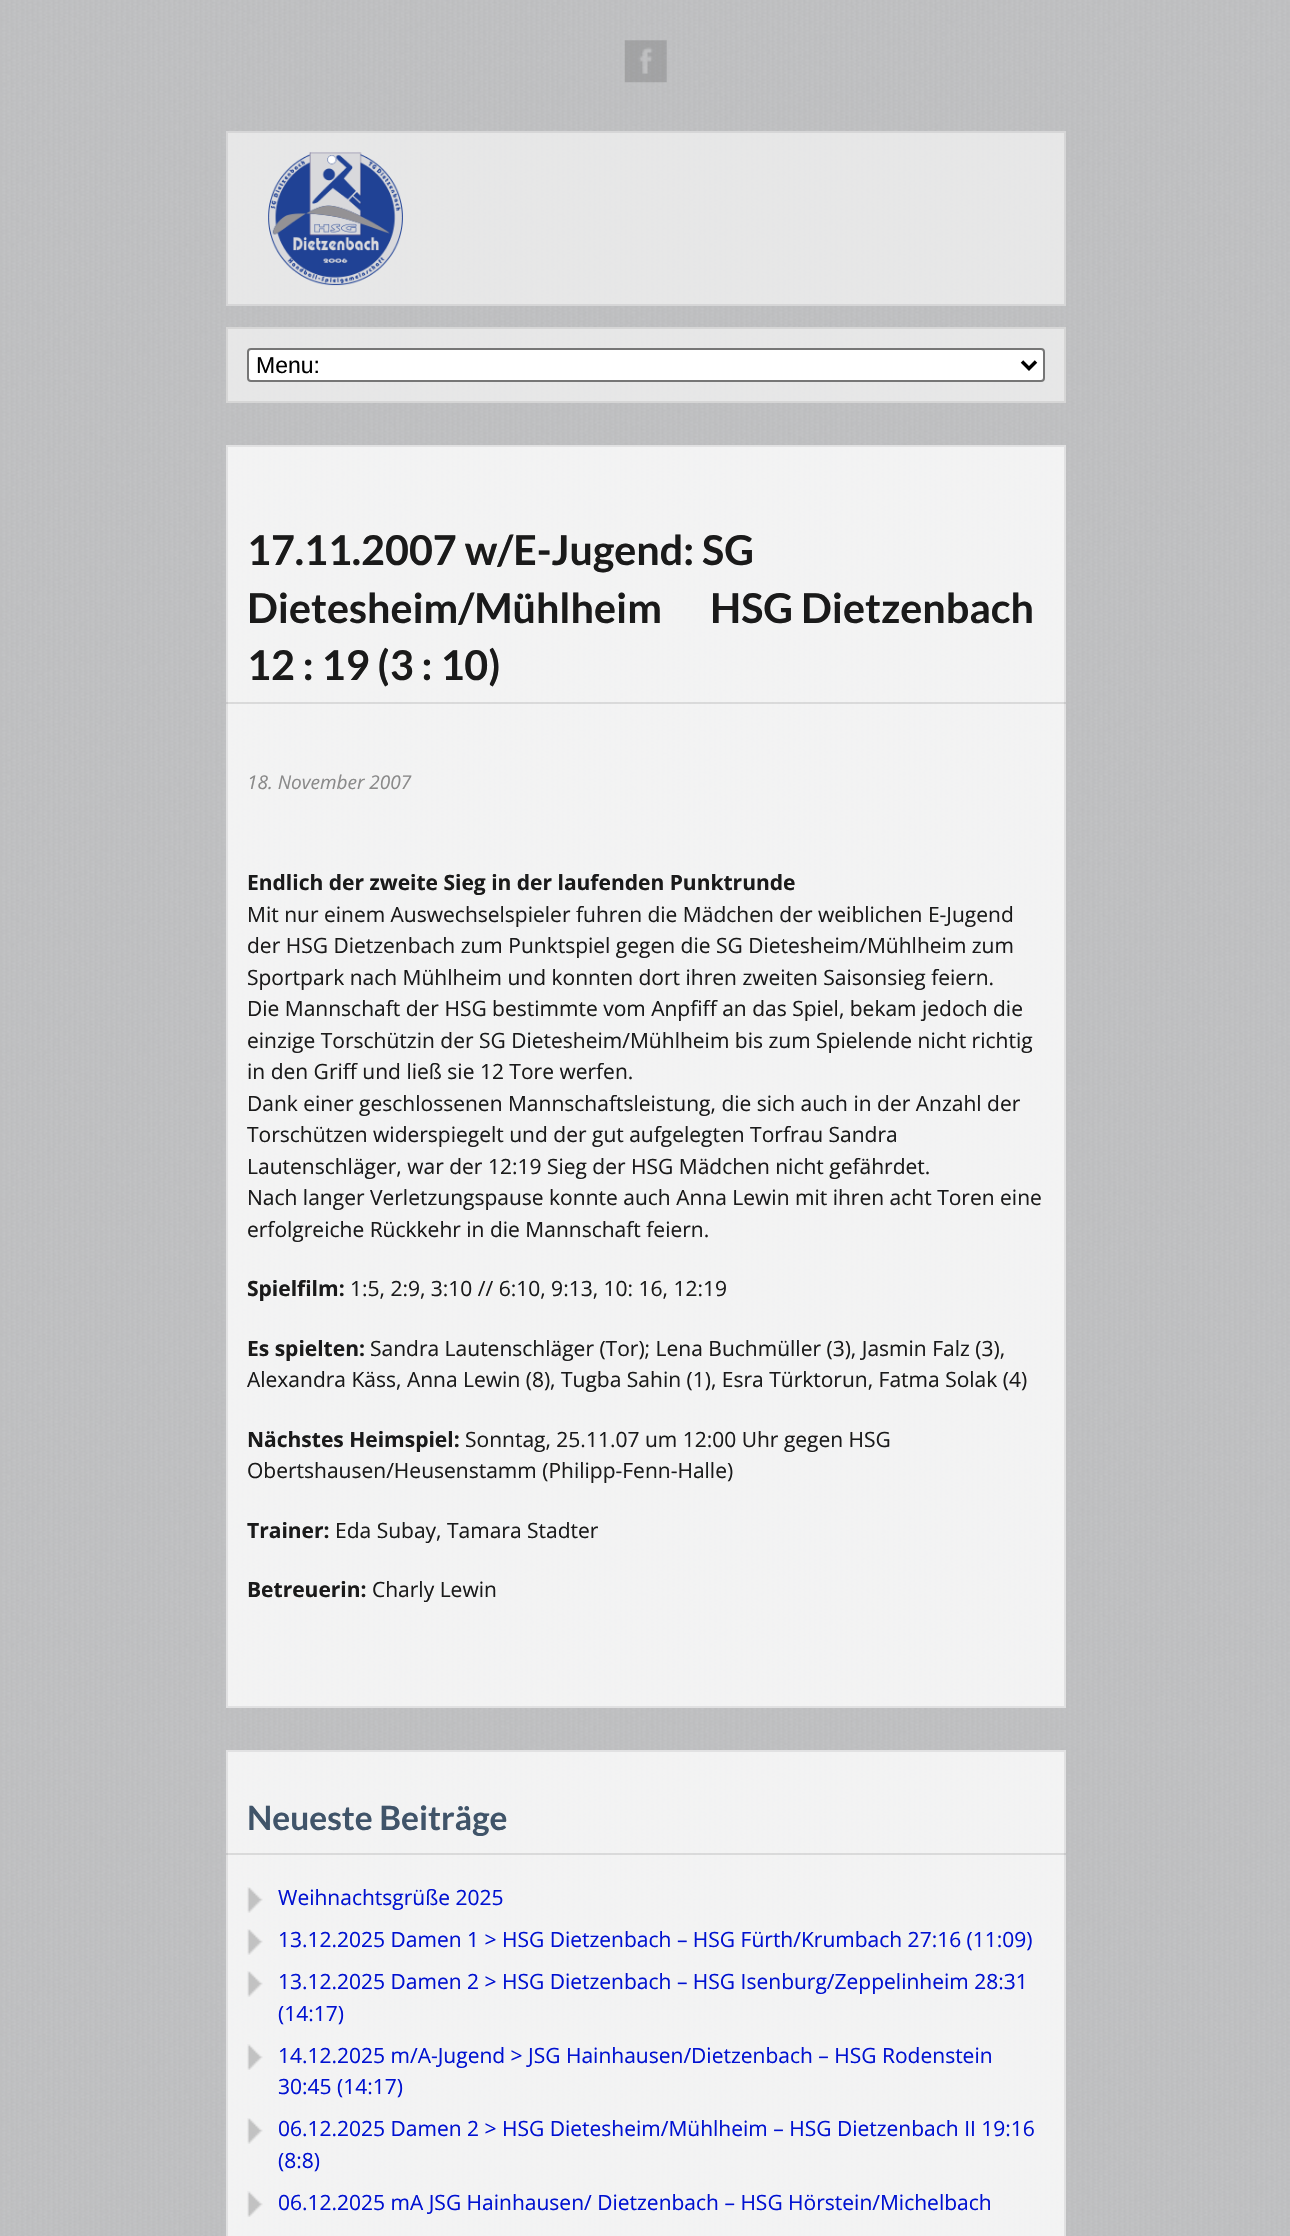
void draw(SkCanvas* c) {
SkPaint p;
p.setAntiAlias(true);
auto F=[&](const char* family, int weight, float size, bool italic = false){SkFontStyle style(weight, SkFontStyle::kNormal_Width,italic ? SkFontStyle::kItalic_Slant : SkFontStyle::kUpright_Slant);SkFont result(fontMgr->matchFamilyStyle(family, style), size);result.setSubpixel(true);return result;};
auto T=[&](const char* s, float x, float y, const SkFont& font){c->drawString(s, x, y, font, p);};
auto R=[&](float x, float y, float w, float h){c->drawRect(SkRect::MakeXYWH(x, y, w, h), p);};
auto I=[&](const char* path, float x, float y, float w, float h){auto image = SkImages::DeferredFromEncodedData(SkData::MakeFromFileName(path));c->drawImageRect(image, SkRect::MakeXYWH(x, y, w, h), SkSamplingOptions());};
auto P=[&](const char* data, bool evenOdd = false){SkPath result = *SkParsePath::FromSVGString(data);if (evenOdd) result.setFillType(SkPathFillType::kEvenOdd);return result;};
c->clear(0xffffffff);
I("1.png",0,0,1290,2236);
I("2.png",624,40,43,43);
p.setColor(0xccf0f0f0);
c->drawRect(SkRect::MakeXYWH(227,132,838,173),p);
p.setStroke(true);
p.setStrokeWidth(2);
p.setColor(0xffd6d6d7);
c->drawRect(SkRect::MakeXYWH(227,132,838,173),p);
I("3.png",268,152,135,134);
p.setStroke(false);
p.setColor(0xccf0f0f0);
c->drawRect(SkRect::MakeXYWH(227,328,838,74),p);
p.setStroke(true);
p.setColor(0xffd6d6d6);
c->drawRect(SkRect::MakeXYWH(227,328,838,74),p);
p.setStroke(false);
p.setColor(0xffffffff);
c->drawRoundRect(SkRect::MakeXYWH(248,349,796,32),3,3,p);
p.setStroke(true);
p.setColor(0xff767676);
c->drawRoundRect(SkRect::MakeXYWH(248,349,796,32),3,3,p);
p.setStrokeWidth(3.5);
p.setColor(0xff000000);
c->drawPath(P("M1022 361.5l7 7l7-7"),p);
auto f1 = F("Liberation Sans",400,23);
p.setStroke(false);
T("Menu:",256,373,f1);
p.setColor(0xccffffff);
c->drawRect(SkRect::MakeXYWH(227,446,838,1261),p);
p.setStroke(true);
p.setStrokeWidth(2);
p.setColor(0xffe1e1e2);
c->drawRect(SkRect::MakeXYWH(227,446,838,1261),p);
auto f2 = F("Lato",700,41.2);
p.setStroke(false);
p.setColor(0xff1a1a1a);
T("17.11.2007 w/E-Jugend: SG",247,565,f2);
T("Dietesheim/Mühlheim",247,623,f2);
T("HSG Dietzenbach",710,623,f2);
T("12 : 19 (3 : 10)",247,680,f2);
p.setColor(0x1a000000);
R(226,702,840,2);
auto f3 = F("Open Sans",400,19,true);
p.setColor(0xff8a8a8a);
T("18. November 2007",247,789,f3);
auto f4 = F("Open Sans",700,21);
p.setColor(0xff1a1a1a);
T("Endlich der zweite Sieg in der laufenden Punktrunde",247,890,f4);
auto f5 = F("Open Sans",400,21);
T("Mit nur einem Auswechselspieler fuhren die Mädchen der weiblichen E-Jugend",247,922,f5);
T("der HSG Dietzenbach zum Punktspiel gegen die SG Dietesheim/Mühlheim zum",247,953,f5);
T("Sportpark nach Mühlheim und konnten dort ihren zweiten Saisonsieg feiern.",247,985,f5);
T("Die Mannschaft der HSG bestimmte vom Anpfiff an das Spiel, bekam jedoch die",247,1016,f5);
T("einzige Torschützin der SG Dietesheim/Mühlheim bis zum Spielende nicht richtig",247,1048,f5);
T("in den Griff und ließ sie 12 Tore werfen.",247,1079,f5);
T("Dank einer geschlossenen Mannschaftsleistung, die sich auch in der Anzahl der",247,1111,f5);
T("Torschützen widerspiegelt und der gut aufgelegten Torfrau Sandra",247,1142,f5);
T("Lautenschläger, war der 12:19 Sieg der HSG Mädchen nicht gefährdet.",247,1174,f5);
T("Nach langer Verletzungspause konnte auch Anna Lewin mit ihren acht Toren eine",247,1205,f5);
T("erfolgreiche Rückkehr in die Mannschaft feiern.",247,1237,f5);
T("Spielfilm:",247,1296,f4);
T("1:5, 2:9, 3:10 // 6:10, 9:13, 10: 16, 12:19",350,1296,f5);
T("Es spielten:",247,1356,f4);
T("Sandra Lautenschläger (Tor); Lena Buchmüller (3), Jasmin Falz (3),",370,1356,f5);
T("Alexandra Käss, Anna Lewin (8), Tugba Sahin (1), Esra Türktorun, Fatma Solak (4)",247,1387,f5);
T("Nächstes Heimspiel:",247,1447,f4);
T("Sonntag, 25.11.07 um 12:00 Uhr gegen HSG",465,1447,f5);
T("Obertshausen/Heusenstamm (Philipp-Fenn-Halle)",247,1478,f5);
T("Trainer:",247,1538,f4);
T("Eda Subay, Tamara Stadter",335,1538,f5);
T("Betreuerin:",247,1597,f4);
T("Charly Lewin",372,1597,f5);
p.setColor(0xccffffff);
c->drawRect(SkRect::MakeXYWH(227,1751,838,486),p);
p.setStroke(true);
p.setColor(0xffe1e1e2);
c->drawRect(SkRect::MakeXYWH(227,1751,838,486),p);
p.setStroke(false);
p.setColor(0x1a000000);
R(226,1853,840,2);
auto f6 = F("Lato",700,33.5);
p.setColor(0xff405469);
T("Neueste Beiträge",247,1830,f6);
I("4.png",247,1887,16,26);
p.setColor(0xff0011d1);
T("Weihnachtsgrüße 2025",278,1905,f5);
I("5.png",247,1929,16,26);
T("13.12.2025 Damen 1 > HSG Dietzenbach – HSG Fürth/Krumbach 27:16 (11:09)",278,1947,f5);
I("6.png",247,1971,16,26);
T("13.12.2025 Damen 2 > HSG Dietzenbach – HSG Isenburg/Zeppelinheim 28:31",278,1989,f5);
T("(14:17)",278,2021,f5);
I("7.png",247,2044,16,26);
T("14.12.2025 m/A-Jugend > JSG Hainhausen/Dietzenbach – HSG Rodenstein",278,2063,f5);
T("30:45 (14:17)",278,2094,f5);
I("8.png",247,2118,16,26);
T("06.12.2025 Damen 2 > HSG Dietesheim/Mühlheim – HSG Dietzenbach II 19:16",278,2136,f5);
T("(8:8)",278,2168,f5);
I("9.png",247,2191,16,26);
T("06.12.2025 mA JSG Hainhausen/ Dietzenbach – HSG Hörstein/Michelbach",278,2210,f5);
}
